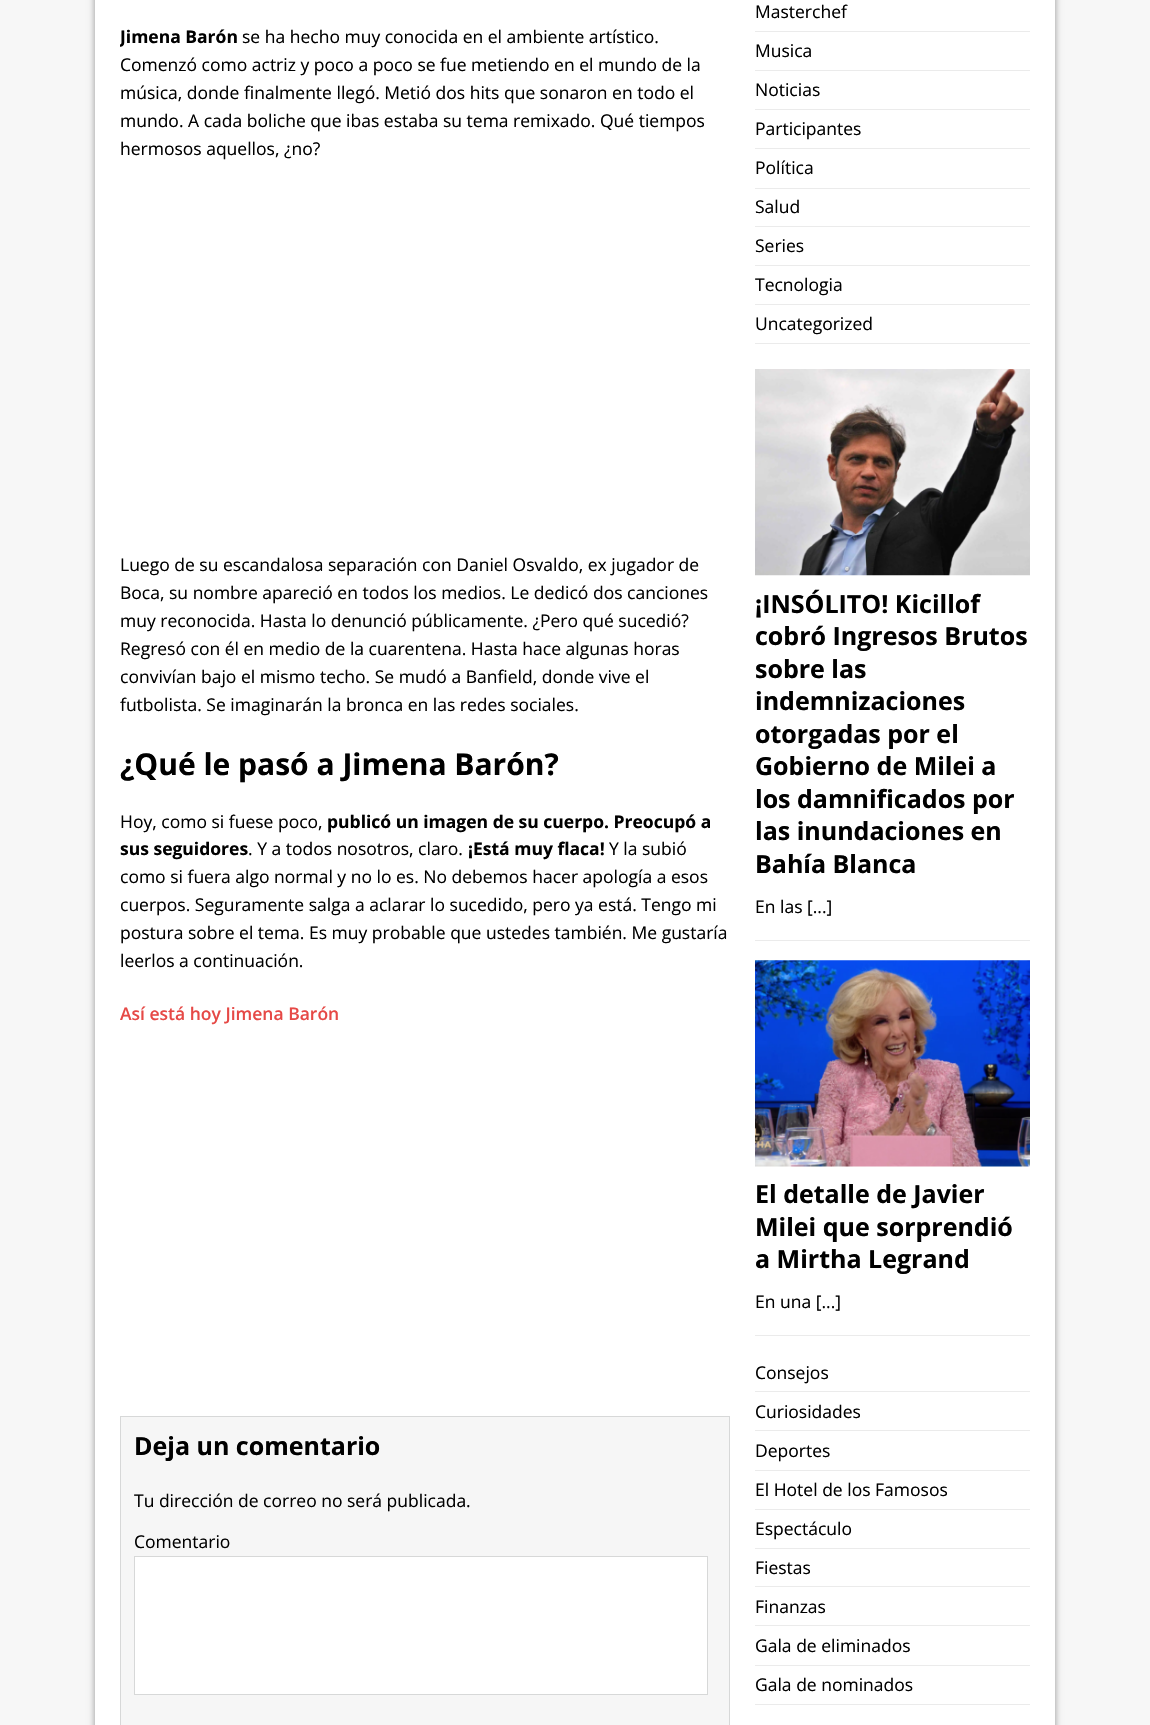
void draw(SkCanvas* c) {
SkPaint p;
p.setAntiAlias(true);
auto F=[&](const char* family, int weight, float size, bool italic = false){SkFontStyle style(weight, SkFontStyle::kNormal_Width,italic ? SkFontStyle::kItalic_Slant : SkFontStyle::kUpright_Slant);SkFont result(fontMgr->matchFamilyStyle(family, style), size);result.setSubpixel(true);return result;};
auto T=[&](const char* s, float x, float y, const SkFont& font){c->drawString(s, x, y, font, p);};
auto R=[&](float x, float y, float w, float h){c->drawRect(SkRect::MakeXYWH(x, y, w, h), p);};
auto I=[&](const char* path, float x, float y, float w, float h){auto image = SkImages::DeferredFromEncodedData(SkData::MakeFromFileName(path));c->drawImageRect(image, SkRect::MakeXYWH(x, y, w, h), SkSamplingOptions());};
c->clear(0xfff7f7f7);
p.setColor(0xffa8a8a8);
p.setMaskFilter(SkMaskFilter::MakeBlur(kNormal_SkBlurStyle, 3));
c->drawRect(SkRect::MakeXYWH(94,-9,962,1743),p);
p.setMaskFilter(nullptr);
p.setColor(0xffffffff);
R(95,0,960,1725);
c->save();
c->clipRect(SkRect::MakeXYWH(120,0,610,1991));
auto f1 = F("Open Sans",700,17.5);
p.setColor(0xff000000);
T("Jimena Barón",120,43,f1);
c->restore();
auto f2 = F("Open Sans",400,17.5);
T("se ha hecho muy conocida en el ambiente artístico.",242,43,f2);
T("Comenzó como actriz y poco a poco se fue metiendo en el mundo de la",120,71,f2);
T("música, donde finalmente llegó. Metió dos hits que sonaron en todo el",120,99,f2);
T("mundo. A cada boliche que ibas estaba su tema remixado. Qué tiempos",120,127,f2);
T("hermosos aquellos, ¿no?",120,155,f2);
T("Luego de su escandalosa separación con Daniel Osvaldo, ex jugador de",120,571,f2);
T("Boca, su nombre apareció en todos los medios. Le dedicó dos canciones",120,599,f2);
T("muy reconocida. Hasta lo denunció públicamente. ¿Pero qué sucedió?",120,627,f2);
T("Regresó con él en medio de la cuarentena. Hasta hace algunas horas",120,655,f2);
T("convivían bajo el mismo techo. Se mudó a Banfield, donde vive el",120,683,f2);
T("futbolista. Se imaginarán la bronca en las redes sociales.",120,711,f2);
auto f3 = F("Open Sans",700,30);
T("¿Qué le pasó a Jimena Barón?",120,775,f3);
T("Hoy, como si fuese poco,",120,828,f2);
T("publicó un imagen de su cuerpo. Preocupó a",327,828,f1);
T("sus seguidores",120,855,f1);
T(". Y a todos nosotros, claro.",248,855,f2);
T("¡Está muy flaca!",468,855,f1);
T("Y la subió",609,855,f2);
T("como si fuera algo normal y no lo es. No debemos hacer apología a esos",120,883,f2);
T("cuerpos. Seguramente salga a aclarar lo sucedido, pero ya está. Tengo mi",120,911,f2);
T("postura sobre el tema. Es muy probable que ustedes también. Me gustaría",120,939,f2);
T("leerlos a continuación.",120,967,f2);
auto f4 = F("Open Sans",600,17.5);
p.setColor(0xffe64946);
T("Así está hoy Jimena Barón",120,1020,f4);
p.setColor(0xfff6f6f6);
c->drawRect(SkRect::MakeXYWH(120.5,1416.5,609,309),p);
p.setStroke(true);
p.setStrokeWidth(1);
p.setColor(0xffd7d8d8);
c->drawRect(SkRect::MakeXYWH(120.5,1416.5,609,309),p);
auto f5 = F("Open Sans",700,25);
p.setStroke(false);
p.setColor(0xff000000);
T("Deja un comentario",134,1455,f5);
T("Tu dirección de correo no será publicada.",134,1507,f2);
T("Comentario",134,1548,f2);
p.setColor(0xffffffff);
c->drawRect(SkRect::MakeXYWH(134.5,1556.5,573,138),p);
p.setStroke(true);
p.setColor(0xffd7d8d8);
c->drawRect(SkRect::MakeXYWH(134.5,1556.5,573,138),p);
p.setStroke(false);
p.setColor(0xffebebeb);
R(755,31,275,1);
p.setColor(0xff000000);
T("Masterchef",755,18,f2);
p.setColor(0xffebebeb);
R(755,70,275,1);
p.setColor(0xff000000);
T("Musica",755,57,f2);
p.setColor(0xffebebeb);
R(755,109,275,1);
p.setColor(0xff000000);
T("Noticias",755,96,f2);
p.setColor(0xffebebeb);
R(755,148,275,1);
p.setColor(0xff000000);
T("Participantes",755,135,f2);
p.setColor(0xffebebeb);
R(755,188,275,1);
p.setColor(0xff000000);
T("Política",755,174,f2);
p.setColor(0xffebebeb);
R(755,226,275,1);
p.setColor(0xff000000);
T("Salud",755,213,f2);
p.setColor(0xffebebeb);
R(755,265,275,1);
p.setColor(0xff000000);
T("Series",755,252,f2);
p.setColor(0xffebebeb);
R(755,304,275,1);
p.setColor(0xff000000);
T("Tecnologia",755,291,f2);
p.setColor(0xffebebeb);
R(755,343,275,1);
p.setColor(0xff000000);
T("Uncategorized",755,330,f2);
p.setColor(0xffebebeb);
R(755,940,275,1);
I("1.png",755,369,275,207);
p.setColor(0xff000000);
T("¡INSÓLITO! Kicillof",755,613,f5);
T("cobró Ingresos Brutos",755,645,f5);
T("sobre las",755,678,f5);
T("indemnizaciones",755,710,f5);
T("otorgadas por el",755,743,f5);
T("Gobierno de Milei a",755,775,f5);
T("los damnificados por",755,808,f5);
T("las inundaciones en",755,840,f5);
T("Bahía Blanca",755,873,f5);
T("En las [...]",755,913,f2);
p.setColor(0xffebebeb);
R(755,1335,275,1);
I("2.png",755,960,275,207);
p.setColor(0xff000000);
T("El detalle de Javier",755,1203,f5);
T("Milei que sorprendió",755,1236,f5);
T("a Mirtha Legrand",755,1268,f5);
T("En una [...]",755,1308,f2);
p.setColor(0xffebebeb);
R(755,1391,275,1);
p.setColor(0xff000000);
T("Consejos",755,1379,f2);
p.setColor(0xffebebeb);
R(755,1430,275,1);
p.setColor(0xff000000);
T("Curiosidades",755,1418,f2);
p.setColor(0xffebebeb);
R(755,1470,275,1);
p.setColor(0xff000000);
T("Deportes",755,1457,f2);
p.setColor(0xffebebeb);
R(755,1509,275,1);
p.setColor(0xff000000);
T("El Hotel de los Famosos",755,1496,f2);
p.setColor(0xffebebeb);
R(755,1548,275,1);
p.setColor(0xff000000);
T("Espectáculo",755,1535,f2);
p.setColor(0xffebebeb);
R(755,1586,275,1);
p.setColor(0xff000000);
T("Fiestas",755,1574,f2);
p.setColor(0xffebebeb);
R(755,1625,275,1);
p.setColor(0xff000000);
T("Finanzas",755,1613,f2);
p.setColor(0xffebebeb);
R(755,1665,275,1);
p.setColor(0xff000000);
T("Gala de eliminados",755,1652,f2);
p.setColor(0xffebebeb);
R(755,1704,275,1);
p.setColor(0xff000000);
T("Gala de nominados",755,1691,f2);
}
